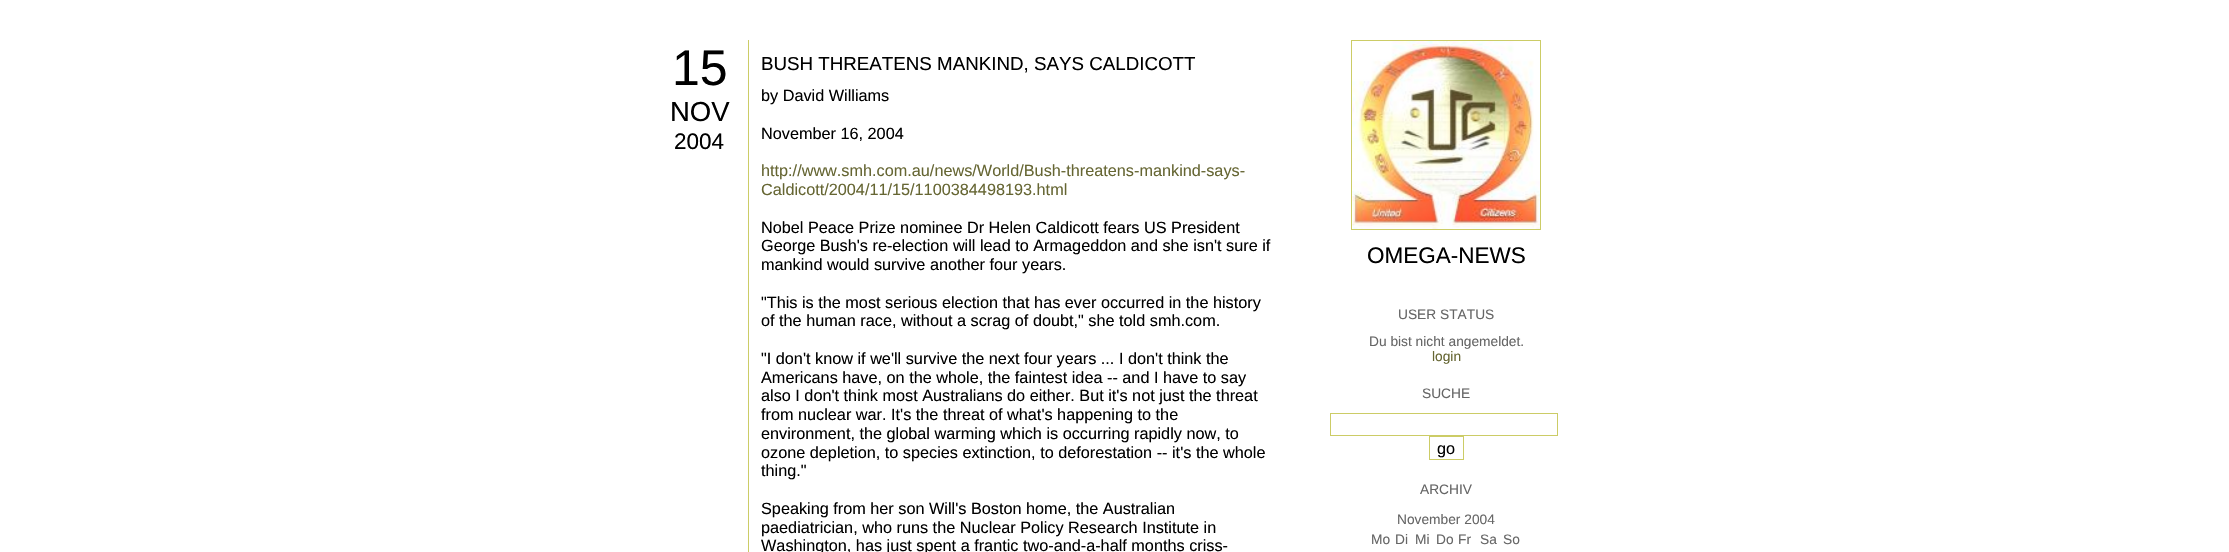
void draw(SkCanvas* c) {
SkPaint p;
p.setAntiAlias(true);
auto F=[&](const char* family, int weight, float size, bool italic = false){SkFontStyle style(weight, SkFontStyle::kNormal_Width,italic ? SkFontStyle::kItalic_Slant : SkFontStyle::kUpright_Slant);SkFont result(fontMgr->matchFamilyStyle(family, style), size);result.setSubpixel(true);return result;};
auto T=[&](const char* s, float x, float y, const SkFont& font){c->drawString(s, x, y, font, p);};
auto R=[&](float x, float y, float w, float h){c->drawRect(SkRect::MakeXYWH(x, y, w, h), p);};
auto I=[&](const char* path, float x, float y, float w, float h){auto image = SkImages::DeferredFromEncodedData(SkData::MakeFromFileName(path));c->drawImageRect(image, SkRect::MakeXYWH(x, y, w, h), SkSamplingOptions());};
c->clear(0xffffffff);
auto f1 = F("Liberation Sans",400,50);
p.setColor(0xff000000);
T("15",672,85,f1);
auto f2 = F("Liberation Sans",400,27.5);
T("NOV",670,121,f2);
auto f3 = F("Liberation Sans",400,22.5);
T("2004",674,149,f3);
p.setColor(0xffcccc66);
R(748,40,1,512);
auto f4 = F("Liberation Sans",400,18.75);
p.setColor(0xff000000);
T("BUSH THREATENS MANKIND, SAYS CALDICOTT",761,70,f4);
auto f5 = F("Liberation Sans",400,16.25);
T("by David Williams",761,101,f5);
T("November 16, 2004",761,139,f5);
p.setColor(0xff666633);
T("http://www.smh.com.au/news/World/Bush-threatens-mankind-says-",761,176,f5);
T("Caldicott/2004/11/15/1100384498193.html",761,195,f5);
p.setColor(0xff000000);
T("Nobel Peace Prize nominee Dr Helen Caldicott fears US President",761,233,f5);
T("George Bush's re-election will lead to Armageddon and she isn't sure if",761,251,f5);
T("mankind would survive another four years.",761,270,f5);
T("\"This is the most serious election that has ever occurred in the history",761,308,f5);
T("of the human race, without a scrag of doubt,\" she told smh.com.",761,326,f5);
T("\"I don't know if we'll survive the next four years ... I don't think the",761,364,f5);
T("Americans have, on the whole, the faintest idea -- and I have to say",761,383,f5);
T("also I don't think most Australians do either. But it's not just the threat",761,401,f5);
T("from nuclear war. It's the threat of what's happening to the",761,420,f5);
T("environment, the global warming which is occurring rapidly now, to",761,439,f5);
T("ozone depletion, to species extinction, to deforestation -- it's the whole",761,458,f5);
T("thing.\"",761,476,f5);
T("Speaking from her son Will's Boston home, the Australian",761,514,f5);
T("paediatrician, who runs the Nuclear Policy Research Institute in",761,533,f5);
T("Washington, has just spent a frantic two-and-a-half months criss-",761,551,f5);
p.setStroke(true);
p.setStrokeWidth(1);
p.setColor(0xffcccc66);
c->drawRect(SkRect::MakeXYWH(1351.5,40.5,189,189),p);
I("1.png",1352,41,188,188);
p.setStroke(false);
p.setColor(0xff000000);
T("OMEGA-NEWS",1367,263,f3);
auto f6 = F("Liberation Sans",400,13.75);
p.setColor(0xff666666);
T("USER STATUS",1398,319,f6);
T("Du bist nicht angemeldet.",1369,346,f6);
p.setColor(0xff666633);
T("login",1432,361,f6);
p.setColor(0xff666666);
T("SUCHE",1422,398,f6);
p.setStroke(true);
p.setColor(0xffcccc66);
c->drawRect(SkRect::MakeXYWH(1330.5,413.5,227,22),p);
c->drawRect(SkRect::MakeXYWH(1429.5,436.5,34,23),p);
p.setStroke(false);
p.setColor(0xff000000);
T("go",1437,454,f5);
p.setColor(0xff666666);
T("ARCHIV",1420,494,f6);
T("November 2004",1397,524,f6);
T("Mo",1371,544,f6);
T("Di",1395,544,f6);
T("Mi",1415,544,f6);
T("Do",1436,544,f6);
T("Fr",1458,544,f6);
T("Sa",1480,544,f6);
T("So",1503,544,f6);
}
